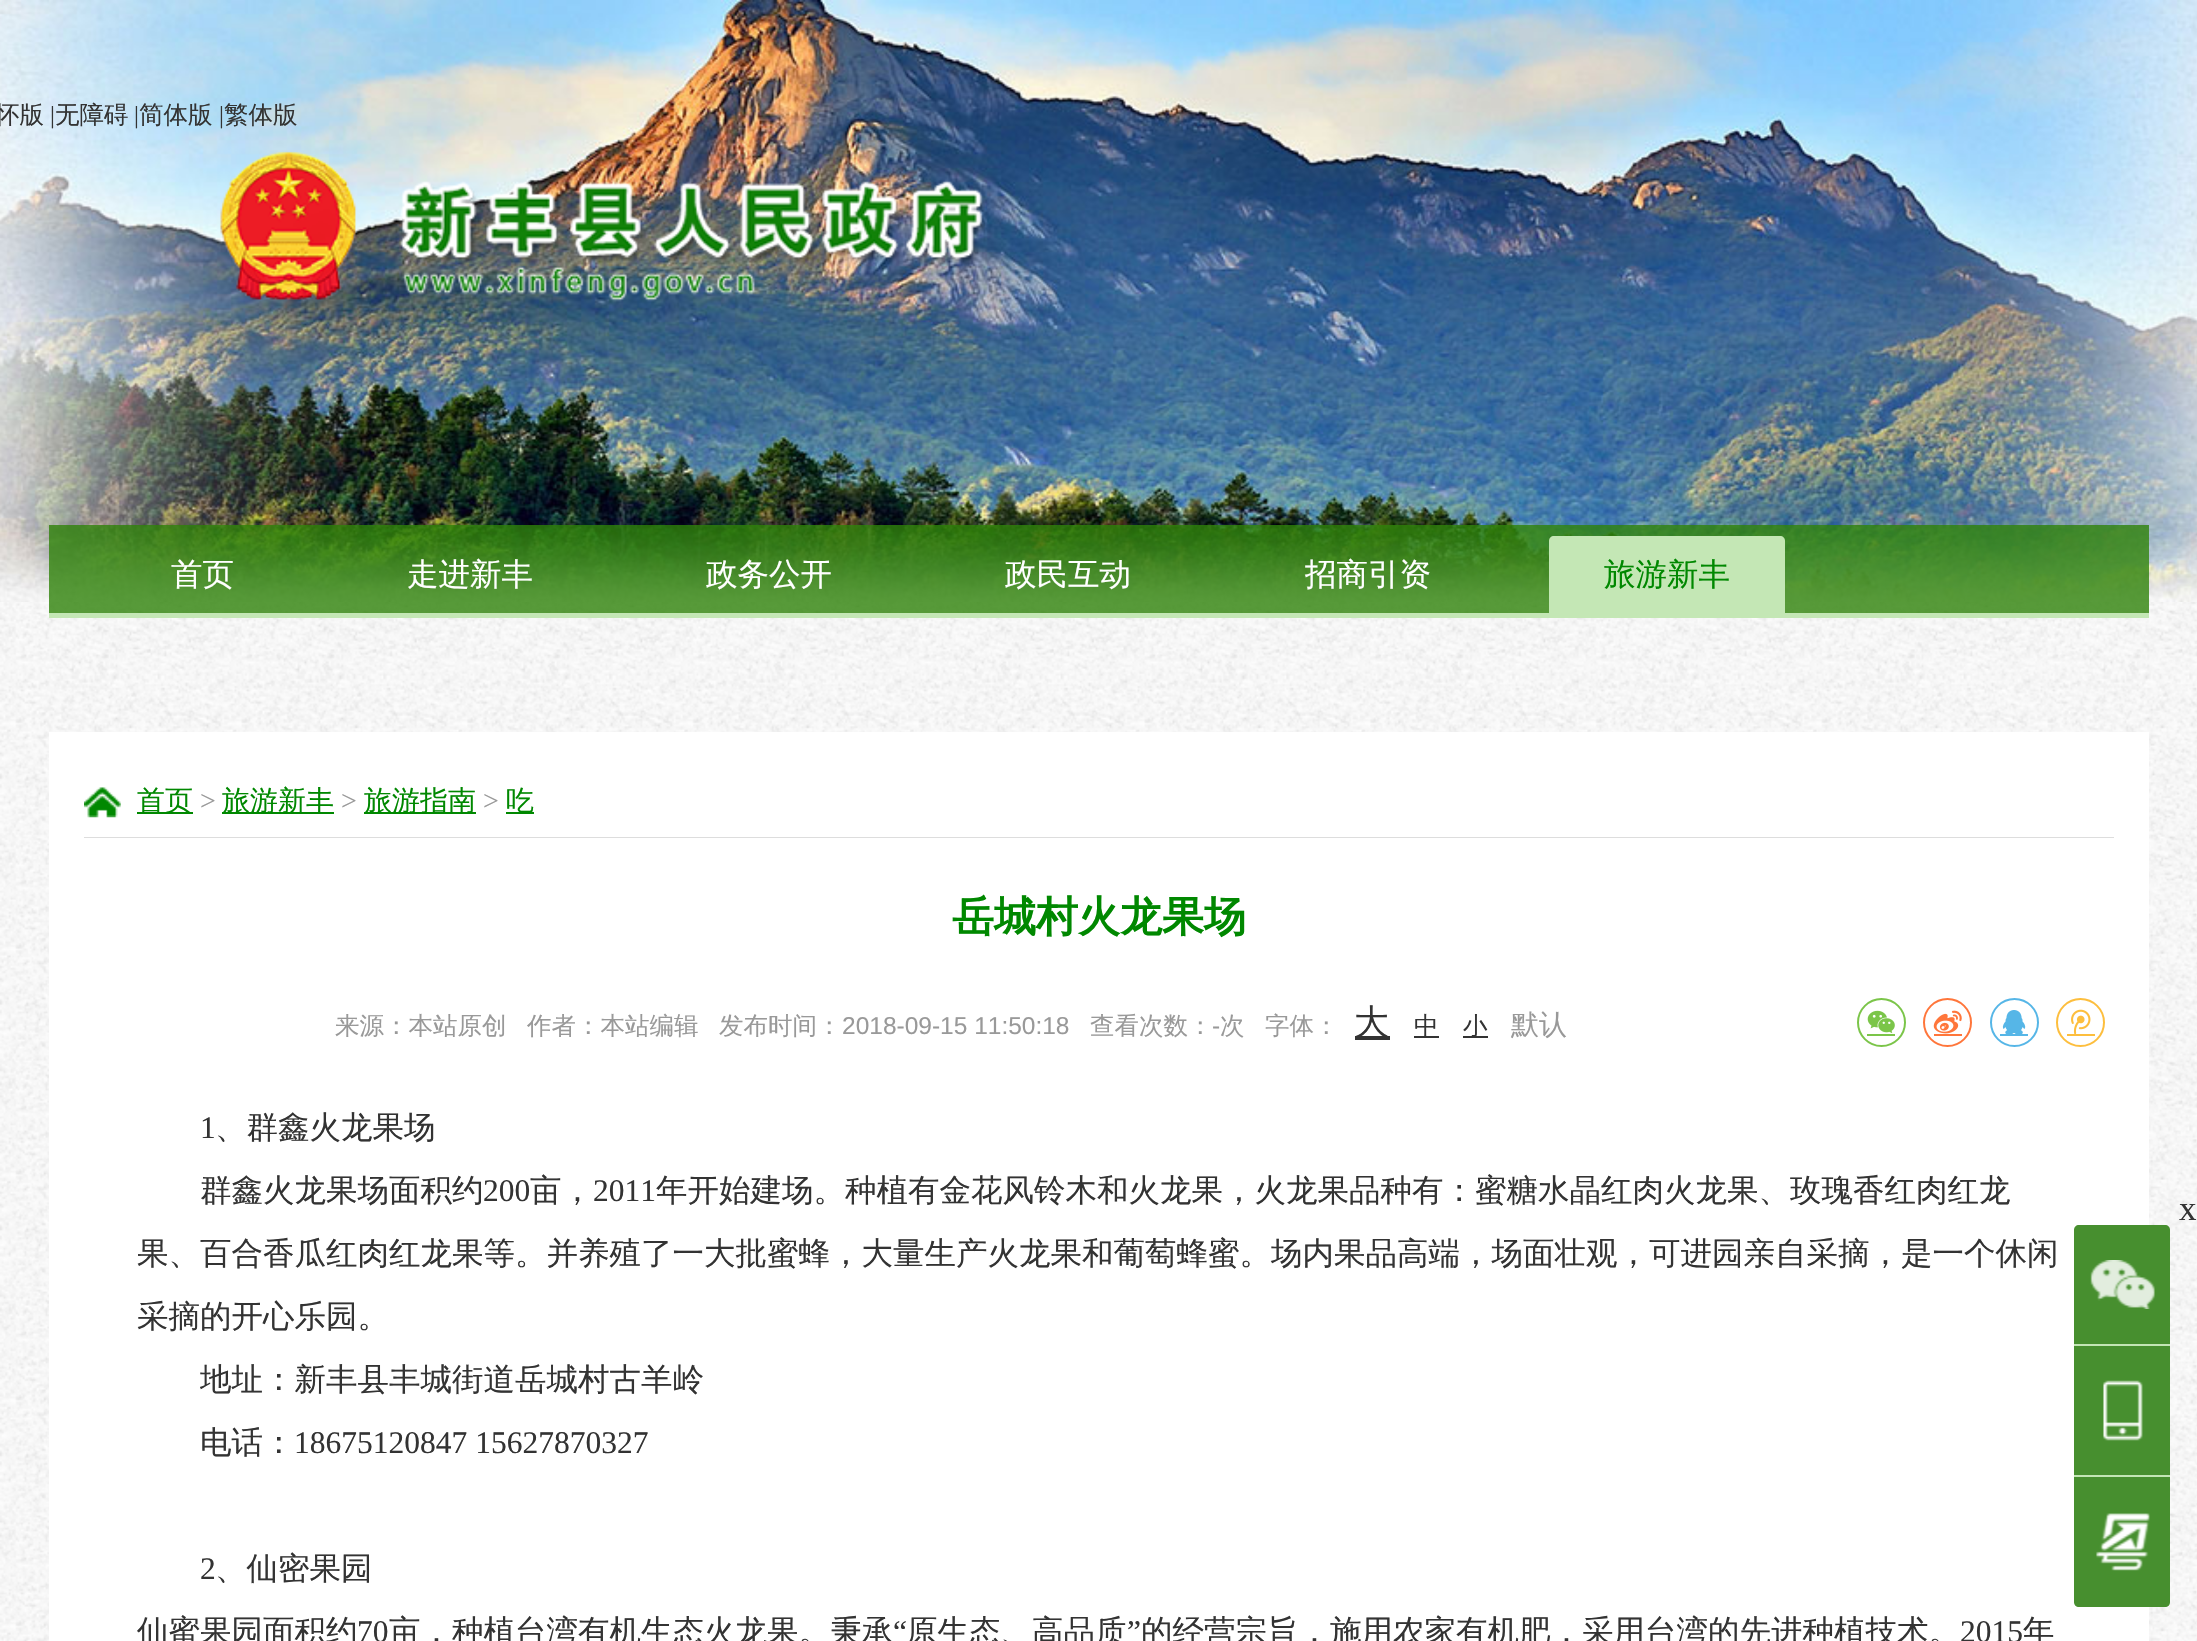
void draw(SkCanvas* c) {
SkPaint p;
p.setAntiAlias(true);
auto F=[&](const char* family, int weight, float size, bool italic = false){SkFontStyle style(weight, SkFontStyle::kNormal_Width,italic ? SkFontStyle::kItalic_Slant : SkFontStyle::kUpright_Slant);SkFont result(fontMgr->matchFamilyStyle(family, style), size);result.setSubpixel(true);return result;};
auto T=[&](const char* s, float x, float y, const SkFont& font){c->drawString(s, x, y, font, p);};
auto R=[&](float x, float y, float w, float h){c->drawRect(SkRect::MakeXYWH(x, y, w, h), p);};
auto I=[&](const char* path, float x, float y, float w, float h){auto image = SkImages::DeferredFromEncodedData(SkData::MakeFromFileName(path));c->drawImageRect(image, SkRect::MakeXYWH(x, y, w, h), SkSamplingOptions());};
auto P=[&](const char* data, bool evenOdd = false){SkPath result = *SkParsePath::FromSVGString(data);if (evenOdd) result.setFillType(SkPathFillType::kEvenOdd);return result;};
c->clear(0xffffffff);
I("1.png",0,602,2197,1039);
I("2.png",0,0,2197,602);
auto f1 = F("WenQuanYi Zen Hei",500,24.5);
p.setColor(0xff333333);
T("怀版",-5,123,f1);
auto f2 = F("Liberation Serif",400,24.5);
T("|",50,123,f2);
T("无障碍",55,123,f1);
T("|",134,123,f2);
T("简体版",139,123,f1);
T("|",219,123,f2);
T("繁体版",224,123,f1);
I("3.png",220,151,765,151);
p.setColor(0xcc2e8209);
R(49,525,2100,88);
p.setColor(0xffc4e7b5);
R(49,613,2100,5);
auto f3 = F("WenQuanYi Zen Hei",500,31.5);
p.setColor(0xffffffff);
T("首页",171,585,f3);
T("走进新丰",407,585,f3);
T("政务公开",706,585,f3);
T("政民互动",1005,585,f3);
T("招商引资",1305,585,f3);
p.setColor(0xffc4e7b5);
c->drawPath(P("M1554 536h226c3 0 5 2 5 5v72h-236v-72c0-3 2-5 5-5z"),p);
p.setColor(0xff008800);
T("旅游新丰",1604,585,f3);
p.setColor(0xffffffff);
R(49,732,2100,909);
I("4.png",84,787,37,31);
p.setColor(0xffdddddd);
R(84,837,2030,1);
p.setColor(0xff008800);
R(137,812,56,2);
auto f4 = F("WenQuanYi Zen Hei",500,28);
T("首页",137,810,f4);
auto f5 = F("Liberation Serif",400,28);
p.setColor(0xff999999);
T(">",200,810,f5);
p.setColor(0xff008800);
R(222,812,112,2);
T("旅游新丰",222,810,f4);
p.setColor(0xff999999);
T(">",341,810,f5);
p.setColor(0xff008800);
R(364,812,112,2);
T("旅游指南",364,810,f4);
p.setColor(0xff999999);
T(">",483,810,f5);
p.setColor(0xff008800);
R(506,812,28,2);
T("吃",506,810,f4);
auto f6 = F("WenQuanYi Zen Hei",700,42);
T("岳城村火龙果场",952,931,f6);
p.setColor(0xff999999);
T("来源：本站原创",335,1034,f1);
T("作者：本站编辑",527,1034,f1);
T("发布时间：",719,1034,f1);
auto f7 = F("Liberation Sans",400,24.5);
T("2018-09-15 11:50:18",842,1034,f7);
T("查看次数：",1090,1034,f1);
T("-",1212,1034,f7);
T("次",1220,1034,f1);
T("字体：",1265,1034,f1);
p.setColor(0xff333333);
R(1355,1036,35,4);
auto f8 = F("WenQuanYi Zen Hei",500,35);
T("大",1354,1034,f8);
R(1414,1036,25,2);
T("中",1414,1034,f1);
R(1463,1036,25,2);
T("小",1463,1034,f1);
p.setColor(0xff999999);
T("默认",1511,1034,f4);
p.setStroke(true);
p.setStrokeWidth(2);
p.setColor(0xff7bc549);
c->drawCircle(1881.5,1022.5,23.5,p);
I("5.png",1867,1010,28,24);
p.setStroke(false);
R(1867,1034,28,2);
p.setStroke(true);
p.setColor(0xffff763b);
c->drawCircle(1947.5,1022.5,23.5,p);
I("6.png",1933,1010,29,24);
p.setStroke(false);
R(1934,1034,28,2);
p.setStroke(true);
p.setColor(0xff56b6e7);
c->drawCircle(2014.5,1022.5,23.5,p);
I("7.png",2002,1010,24,24);
p.setStroke(false);
R(2000,1034,28,2);
p.setStroke(true);
p.setColor(0xfffdbe3d);
c->drawCircle(2080.5,1022.5,23.5,p);
I("8.png",2071,1009,20,25);
p.setStroke(false);
R(2067,1034,28,2);
auto f9 = F("Liberation Serif",400,31.5);
p.setColor(0xff333333);
T("1",200,1138,f9);
T("、群鑫火龙果场",215,1138,f3);
T("群鑫火龙果场面积约",200,1201,f3);
T("200",483,1201,f9);
T("亩，",530,1201,f3);
T("2011",593,1201,f9);
T("年开始建场。种植有金花风铃木和火龙果，火龙果品种有：蜜糖水晶红肉火龙果、玫瑰香红肉红龙",656,1201,f3);
T("果、百合香瓜红肉红龙果等。并养殖了一大批蜜蜂，大量生产火龙果和葡萄蜂蜜。场内果品高端，场面壮观，可进园亲自采摘，是一个休闲",137,1264,f3);
T("采摘的开心乐园。",137,1327,f3);
T("地址：新丰县丰城街道岳城村古羊岭",200,1390,f3);
T("电话：",200,1453,f3);
T("18675120847 15627870327",294,1453,f9);
T("2",200,1579,f9);
T("、仙密果园",215,1579,f3);
T("仙蜜果园面积约",137,1642,f3);
T("70",357,1642,f9);
T("亩，种植台湾有机生态火龙果。秉承",389,1642,f3);
T("“",893,1642,f9);
T("原生态、高品质",906,1642,f3);
T("”",1127,1642,f9);
T("的经营宗旨，施用农家有机肥，采用台湾的先进种植技术。",1141,1642,f3);
T("2015",1960,1642,f9);
T("年",2023,1642,f3);
auto f10 = F("Liberation Serif",400,35);
T("x",2179,1220,f10);
p.setColor(0xff478f2f);
c->drawPath(P("M2079 1225h86c3 0 5 2 5 5v114h-96v-114c0-3 2-5 5-5z"),p);
I("9.png",2090,1260,65,49);
R(2074,1346,96,129);
p.setColor(0xffc3e6b5);
R(2074,1344,96,2);
I("10.png",2103,1380,40,61);
p.setColor(0xff478f2f);
c->drawPath(P("M2074 1475h96v127c0 3-2 5-5 5h-86c-3 0-5-2-5-5z"),p);
p.setColor(0xffc3e6b5);
R(2074,1475,96,2);
I("11.png",2096,1513,54,58);
}
